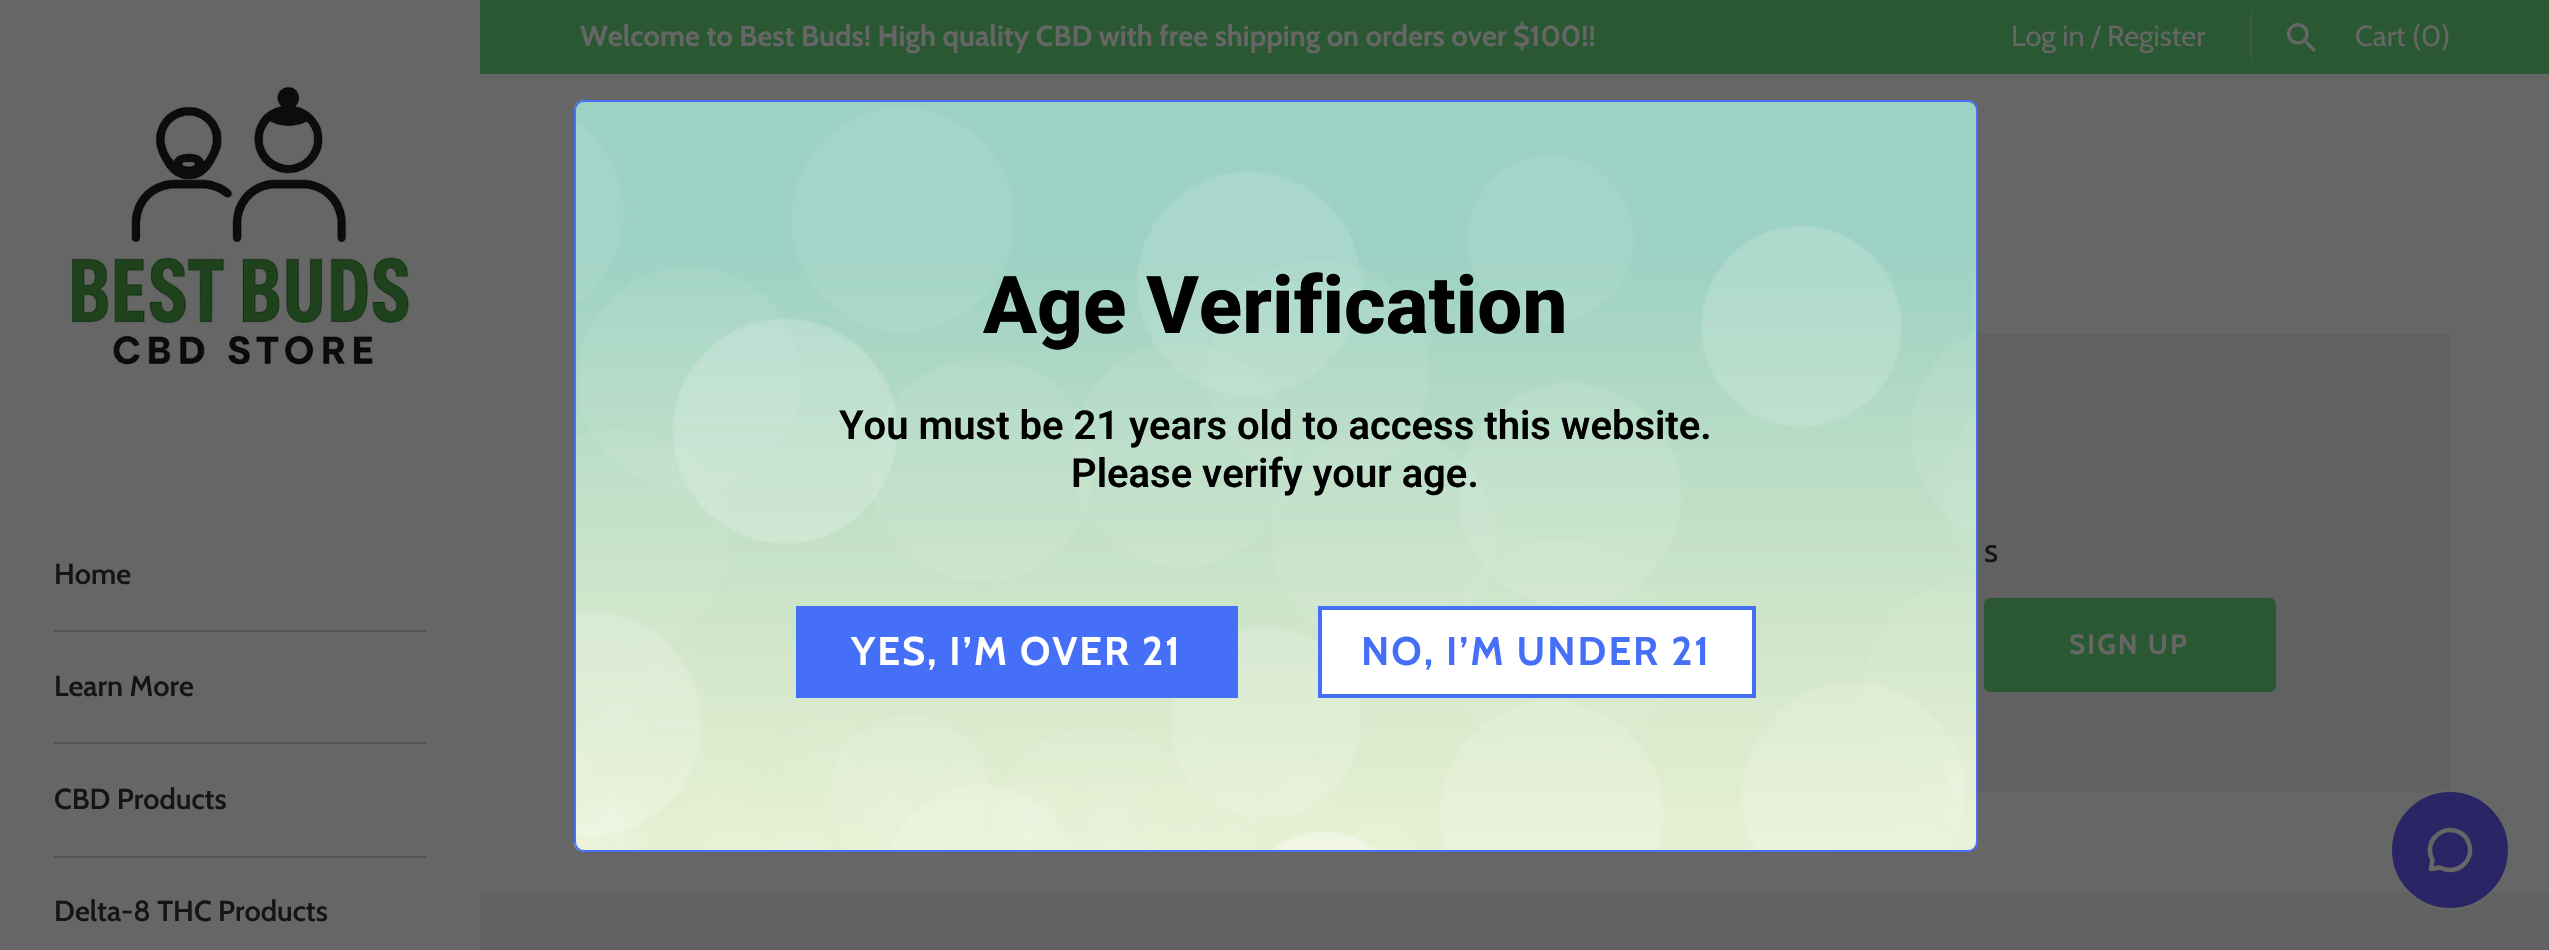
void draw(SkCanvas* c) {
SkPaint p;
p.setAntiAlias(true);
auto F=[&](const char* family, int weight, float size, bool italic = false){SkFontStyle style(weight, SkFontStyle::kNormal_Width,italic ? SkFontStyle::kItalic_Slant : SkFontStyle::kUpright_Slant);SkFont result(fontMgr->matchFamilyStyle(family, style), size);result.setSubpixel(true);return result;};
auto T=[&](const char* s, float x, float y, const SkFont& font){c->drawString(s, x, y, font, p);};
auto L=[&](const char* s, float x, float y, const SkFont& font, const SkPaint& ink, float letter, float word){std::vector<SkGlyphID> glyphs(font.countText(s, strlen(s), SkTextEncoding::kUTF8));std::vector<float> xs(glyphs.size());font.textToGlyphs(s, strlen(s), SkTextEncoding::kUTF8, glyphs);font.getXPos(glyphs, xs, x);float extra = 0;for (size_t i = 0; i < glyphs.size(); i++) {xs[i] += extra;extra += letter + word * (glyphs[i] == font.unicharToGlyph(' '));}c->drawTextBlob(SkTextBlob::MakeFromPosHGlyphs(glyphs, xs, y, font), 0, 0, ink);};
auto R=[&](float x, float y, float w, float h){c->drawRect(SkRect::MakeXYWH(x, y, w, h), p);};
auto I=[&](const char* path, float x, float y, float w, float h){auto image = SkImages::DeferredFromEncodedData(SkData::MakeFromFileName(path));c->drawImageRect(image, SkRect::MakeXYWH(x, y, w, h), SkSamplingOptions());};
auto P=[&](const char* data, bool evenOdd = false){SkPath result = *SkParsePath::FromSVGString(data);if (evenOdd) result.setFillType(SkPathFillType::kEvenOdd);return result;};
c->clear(0xff666666);
p.setColor(0xff295832);
R(480,0,2069,74);
auto f1 = F("Cabin",700,28.9);
p.setColor(0xff666666);
T("Welcome to Best Buds! High quality CBD with",580,46,f1);
T("free shipping on orders over $100!!",1159,46,f1);
auto f2 = F("Cabin",400,28.9);
T("Log in / Register",2011,46,f2);
p.setColor(0xff385c3f);
R(2250,12,2,48);
I("1.png",2287,23,29,29);
p.setColor(0xff666666);
T("Cart (0)",2355,46,f2);
I("2.png",70,86,342,279);
p.setColor(0xff525252);
R(54,630,372,2);
auto f3 = F("Cabin",600,28.9);
p.setColor(0xff151515);
T("Home",54,584,f3);
p.setColor(0xff525252);
R(54,742,372,2);
p.setColor(0xff151515);
T("Learn More",54,696,f3);
p.setColor(0xff525252);
R(54,856,372,2);
p.setColor(0xff151515);
T("CBD Products",54,809,f3);
T("Delta-8 THC Products",54,921,f3);
p.setColor(0xff616161);
R(1978,334,472,458);
auto f4 = F("Cabin",400,34);
p.setColor(0xff151515);
T("s",1984,562,f4);
p.setColor(0xff295832);
c->drawRoundRect(SkRect::MakeXYWH(1985,599,290,92),5,5,p);
p.setStroke(true);
p.setStrokeWidth(2);
c->drawRoundRect(SkRect::MakeXYWH(1985,599,290,92),5,5,p);
auto f5 = F("Cabin",700,28);
p.setStroke(false);
p.setColor(0xff666666);
L("SIGN UP",2069,654,f5,p,2,0);
p.setColor(0xff626262);
R(480,892,2069,58);
I("3.png",574,100,1404,752);
p.setStroke(true);
p.setColor(0xff456ff7);
c->drawRoundRect(SkRect::MakeXYWH(575,101,1402,750),9,9,p);
auto f6 = F("Roboto",800,80);
p.setStroke(false);
p.setColor(0xff000000);
T("Age Verification",983,333,f6);
auto f7 = F("Roboto",600,40);
T("You must be 21 years old to access this website.",839,439,f7);
T("Please verify your age.",1071,487,f7);
p.setColor(0xff456ff7);
R(796,606,442,92);
auto f8 = F("Cabin",700,40);
p.setColor(0xffffffff);
L("YES, I’M OVER 21",851,665,f8,p,2,0);
c->drawRect(SkRect::MakeXYWH(1320,608,434,88),p);
p.setStroke(true);
p.setStrokeWidth(4);
p.setColor(0xff456ff7);
c->drawRect(SkRect::MakeXYWH(1320,608,434,88),p);
p.setStroke(false);
L("NO, I’M UNDER 21",1361,665,f8,p,2,0);
p.setColor(0xff2a2666);
c->drawCircle(2450,850,59,p);
p.setStroke(true);
p.setStrokeWidth(2);
p.setColor(0xff666666);
c->drawCircle(2450,850,59,p);
p.setStrokeWidth(4.5);
p.setStrokeCap(SkPaint::kRound_Cap);
p.setStrokeJoin(SkPaint::kRound_Join);
c->drawPath(P("M2450 870c9 0 17-6 19.5-15c2-8.5-1.5-18-9.5-22.5c-8-4.5-17.5-3-24 3.5c-6.5 6-8 16-3.5 24l-1.5 9l9-1.5c3 1.5 6.5 2.5 10 2.5z"),p);
p.setColor(0xff2a2666);
c->drawPath(P("M2450 865v-15m0 0v-15m0 15h-15m15 0h15"),p);
}
